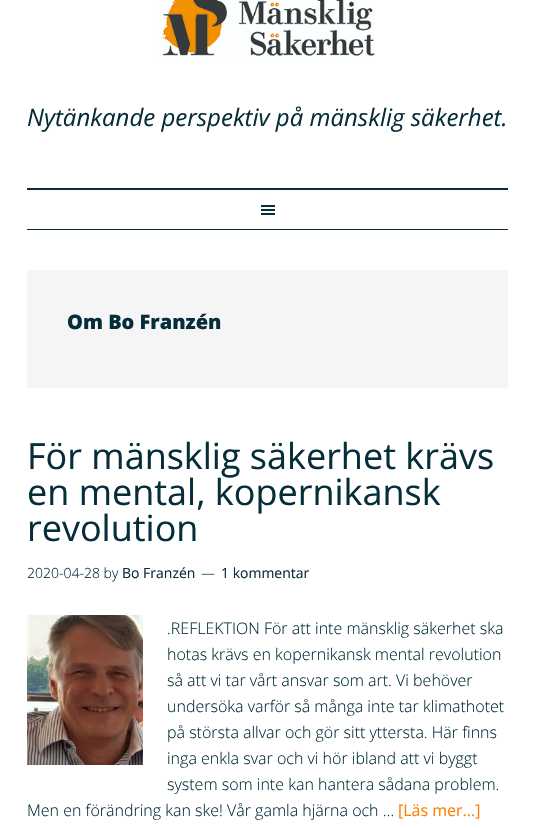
void draw(SkCanvas* c) {
SkPaint p;
p.setAntiAlias(true);
auto F=[&](const char* family, int weight, float size, bool italic = false){SkFontStyle style(weight, SkFontStyle::kNormal_Width,italic ? SkFontStyle::kItalic_Slant : SkFontStyle::kUpright_Slant);SkFont result(fontMgr->matchFamilyStyle(family, style), size);result.setSubpixel(true);return result;};
auto T=[&](const char* s, float x, float y, const SkFont& font){c->drawString(s, x, y, font, p);};
auto R=[&](float x, float y, float w, float h){c->drawRect(SkRect::MakeXYWH(x, y, w, h), p);};
auto I=[&](const char* path, float x, float y, float w, float h){auto image = SkImages::DeferredFromEncodedData(SkData::MakeFromFileName(path));c->drawImageRect(image, SkRect::MakeXYWH(x, y, w, h), SkSamplingOptions());};
c->clear(0xffffffff);
p.setColor(0xff062e3a);
R(27,188,481,2);
I("1.png",159,0,216,58);
auto f1 = F("Open Sans",400,24,true);
T("Nytänkande perspektiv på mänsklig säkerhet.",27,126,f1);
R(27,229,481,1);
I("2.png",261,205,14,10);
p.setColor(0xfff5f5f5);
R(27,270,481,118);
auto f2 = F("Open Sans",800,20);
p.setColor(0xff062e3a);
T("Om Bo Franzén",67,329,f2);
auto f3 = F("Open Sans",400,36);
T("För mänsklig säkerhet krävs",27,469,f3);
T("en mental, kopernikansk",27,505,f3);
T("revolution",27,541,f3);
auto f4 = F("Open Sans",300,14);
T("2020-04-28 by",27,578,f4);
auto f5 = F("Open Sans",400,14);
T("Bo Franzén",122,578,f5);
T("—",201,578,f4);
T("1 kommentar",221,578,f5);
I("3.png",27,615,116,150);
auto f6 = F("Open Sans",300,16);
T(".REFLEKTION För att inte mänsklig säkerhet ska",167,634,f6);
T("hotas krävs en kopernikansk mental revolution",167,660,f6);
T("så att vi tar vårt ansvar som art. Vi behöver",167,686,f6);
T("undersöka varför så många inte tar klimathotet",167,712,f6);
T("på största allvar och gör sitt yttersta. Här finns",167,738,f6);
T("inga enkla svar och vi hör ibland att vi byggt",167,764,f6);
T("system som inte kan hantera sådana problem.",167,790,f6);
T("Men en förändring kan ske! Vår gamla hjärna och …",27,816,f6);
auto f7 = F("Open Sans",400,16);
p.setColor(0xffff7f00);
T("[Läs mer...]",398,816,f7);
}
